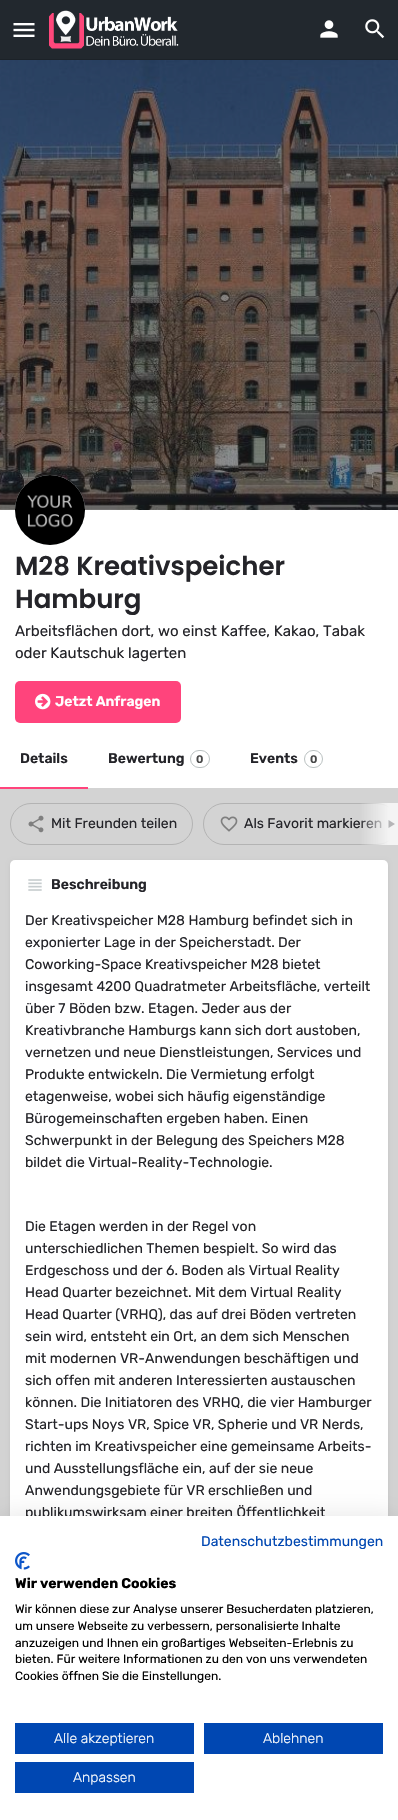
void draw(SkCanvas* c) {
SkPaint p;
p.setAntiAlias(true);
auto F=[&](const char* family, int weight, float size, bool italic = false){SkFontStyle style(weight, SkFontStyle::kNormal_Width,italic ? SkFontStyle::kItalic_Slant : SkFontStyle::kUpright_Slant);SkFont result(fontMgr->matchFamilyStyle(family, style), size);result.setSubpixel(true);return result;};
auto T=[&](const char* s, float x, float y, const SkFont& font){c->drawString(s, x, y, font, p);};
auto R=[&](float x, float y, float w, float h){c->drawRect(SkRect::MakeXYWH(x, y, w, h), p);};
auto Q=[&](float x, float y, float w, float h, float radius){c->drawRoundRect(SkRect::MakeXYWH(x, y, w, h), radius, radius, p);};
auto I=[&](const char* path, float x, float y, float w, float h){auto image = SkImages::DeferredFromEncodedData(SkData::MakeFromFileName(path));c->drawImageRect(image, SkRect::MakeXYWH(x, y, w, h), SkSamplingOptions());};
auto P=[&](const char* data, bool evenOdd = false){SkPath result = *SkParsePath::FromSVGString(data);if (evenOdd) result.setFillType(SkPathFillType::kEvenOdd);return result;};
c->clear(0xffd3d3d3);
p.setColor(0xff22282e);
R(0,0,398,59);
p.setColor(0xff1c2228);
R(0,59,398,1);
I("1.png",13,23,22,14);
I("2.png",49,10,130,39);
I("3.png",320,20,18,18);
I("4.png",365,19,20,20);
I("5.png",0,60,398,450);
p.setColor(0xffffffff);
R(0,510,398,278);
p.setColor(0xffdde5e6);
c->drawCircle(50,510,35,p);
I("6.png",15,475,70,70);
auto f1 = F("Poppins",600,26);
p.setColor(0xff242429);
T("M28 Kreativspeicher",15,575,f1);
T("Hamburg",15,608,f1);
auto f2 = F("Rubik",400,15);
T("Arbeitsflächen dort, wo einst Kaffee, Kakao, Tabak",15,636,f2);
T("oder Kautschuk lagerten",15,658,f2);
p.setColor(0xffff447c);
Q(15,681,166,42,5);
I("7.png",35,693,16,17);
auto f3 = F("Rubik",600,14);
p.setColor(0xffffffff);
T("Jetzt Anfragen",55,706,f3);
p.setColor(0xff242429);
T("Details",20,763,f3);
p.setColor(0xffff447c);
R(0,787,88,2);
p.setColor(0xff242429);
T("Bewertung",108,763,f3);
p.setStroke(true);
p.setStrokeWidth(1);
p.setColor(0xffbac1c1);
c->drawRoundRect(SkRect::MakeXYWH(190.5,750.5,19,17),8.5,8.5,p);
auto f4 = F("Rubik",600,11);
p.setStroke(false);
p.setColor(0xff484848);
T("0",196,763,f4);
p.setColor(0xff242429);
T("Events",250,763,f3);
p.setStroke(true);
p.setColor(0xffbac1c1);
c->drawRoundRect(SkRect::MakeXYWH(304.5,750.5,18,17),8.5,8.5,p);
p.setStroke(false);
p.setColor(0xff484848);
T("0",310,763,f4);
p.setStroke(true);
p.setColor(0xffb3b3b3);
c->drawRoundRect(SkRect::MakeXYWH(10.5,803.5,182,41),20.5,20.5,p);
I("8.png",28,815,16,18);
auto f5 = F("Rubik",400,14);
p.setStroke(false);
p.setColor(0xff242429);
T("Mit Freunden teilen",51,828,f5);
p.setStroke(true);
p.setColor(0xffb3b3b3);
c->drawRoundRect(SkRect::MakeXYWH(203.5,803.5,194,41),20.5,20.5,p);
p.setStroke(false);
p.setColor(0xff242429);
T("Als Favorit markieren",244,828,f5);
{
const SkColor colors[] = {0x00f4f4f4,0xfff4f4f4};
const float stops[] = {0,.8};
const SkPoint ends[] = {{359,824}, {398,824}};
p.setShader(SkGradientShader::MakeLinear(ends, colors, stops, 2, SkTileMode::kClamp));
p.setAlpha(255);
}
R(360,803,38,42);
p.setShader(nullptr);
p.setColor(0xffb5b5b7);
c->drawPath(P("M388.5 820l6.5 4l-6.5 4z"),p);
I("9.png",220,816,18,16);
p.setColor(0x12000000);
p.setMaskFilter(SkMaskFilter::MakeBlur(kNormal_SkBlurStyle, 2));
c->drawRoundRect(SkRect::MakeXYWH(10,861,378,831),5,5,p);
p.setMaskFilter(nullptr);
p.setColor(0xffffffff);
Q(10,860,378,831,5);
I("10.png",28,879,14,12);
p.setColor(0xff242429);
T("Beschreibung",51,889,f3);
T("Der Kreativspeicher M28 Hamburg befindet sich in",25,925,f5);
T("exponierter Lage in der Speicherstadt. Der",25,947,f5);
T("Coworking-Space Kreativspeicher M28 bietet",25,969,f5);
T("insgesamt 4200 Quadratmeter Arbeitsfläche, verteilt",25,991,f5);
T("über 7 Böden bzw. Etagen. Jeder aus der",25,1013,f5);
T("Kreativbranche Hamburgs kann sich dort austoben,",25,1035,f5);
T("vernetzen und neue Dienstleistungen, Services und",25,1057,f5);
T("Produkte entwickeln. Die Vermietung erfolgt",25,1079,f5);
T("etagenweise, wobei sich häufig eigenständige",25,1101,f5);
T("Bürogemeinschaften ergeben haben. Einen",25,1123,f5);
T("Schwerpunkt in der Belegung des Speichers M28",25,1145,f5);
T("bildet die Virtual-Reality-Technologie.",25,1167,f5);
T("Die Etagen werden in der Regel von",25,1231,f5);
T("unterschiedlichen Themen bespielt. So wird das",25,1253,f5);
T("Erdgeschoss und der 6. Boden als Virtual Reality",25,1275,f5);
T("Head Quarter bezeichnet. Mit dem Virtual Reality",25,1297,f5);
T("Head Quarter (VRHQ), das auf drei Böden vertreten",25,1319,f5);
T("sein wird, entsteht ein Ort, an dem sich Menschen",25,1341,f5);
T("mit modernen VR-Anwendungen beschäftigen und",25,1363,f5);
T("sich offen mit anderen Interessierten austauschen",25,1385,f5);
T("können. Die Initiatoren des VRHQ, die vier Hamburger",25,1407,f5);
T("Start-ups Noys VR, Spice VR, Spherie und VR Nerds,",25,1429,f5);
T("richten im Kreativspeicher eine gemeinsame Arbeits-",25,1451,f5);
T("und Ausstellungsfläche ein, auf der sie neue",25,1473,f5);
T("Anwendungsgebiete für VR erschließen und",25,1495,f5);
T("publikumswirksam einer breiten Öffentlichkeit",25,1517,f5);
p.setColor(0x1a000000);
p.setMaskFilter(SkMaskFilter::MakeBlur(kNormal_SkBlurStyle, 12));
c->drawRect(SkRect::MakeXYWH(0,1516,398,304),p);
p.setMaskFilter(nullptr);
p.setColor(0xffffffff);
R(0,1516,398,304);
p.setColor(0xff0047b2);
T("Datenschutzbestimmungen",201,1546,f5);
I("11.png",15,1552,15,18);
auto f6 = F("Rubik",700,14);
p.setColor(0xff000000);
T("Wir verwenden Cookies",15,1588,f6);
auto f7 = F("Rubik",400,12);
T("Wir können diese zur Analyse unserer Besucherdaten platzieren,",15,1613,f7);
T("um unsere Webseite zu verbessern, personalisierte Inhalte",15,1630,f7);
T("anzuzeigen und Ihnen ein großartiges Webseiten-Erlebnis zu",15,1647,f7);
T("bieten. Für weitere Informationen zu den von uns verwendeten",15,1663,f7);
T("Cookies öffnen Sie die Einstellungen.",15,1680,f7);
p.setColor(0xff0047b2);
R(15,1723,179,31);
auto f8 = F("Rubik",300,14);
p.setColor(0xffffffff);
T("Alle akzeptieren",54,1743,f8);
p.setColor(0xff0047b2);
R(204,1723,179,31);
p.setColor(0xffffffff);
T("Ablehnen",263,1743,f8);
p.setColor(0xff0047b2);
R(15,1762,179,31);
p.setColor(0xffffffff);
T("Anpassen",73,1782,f8);
}
